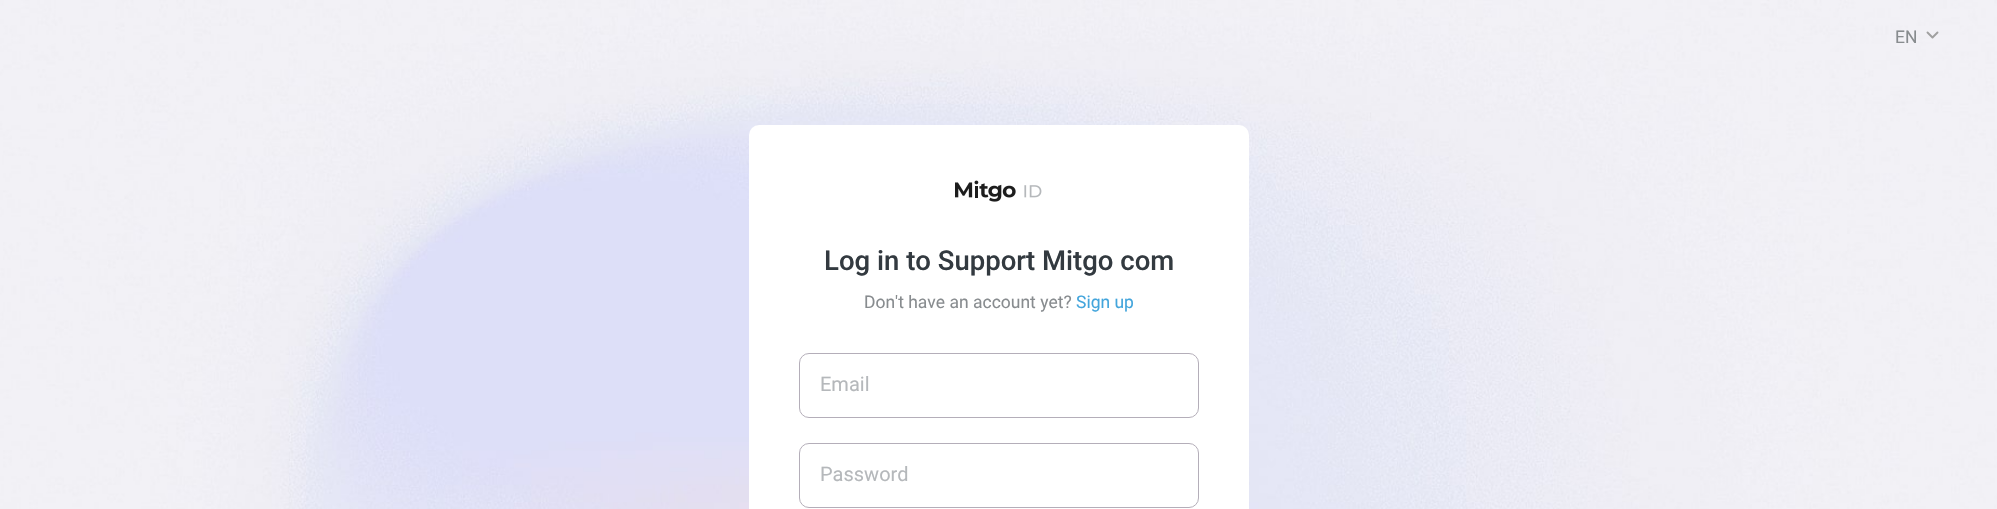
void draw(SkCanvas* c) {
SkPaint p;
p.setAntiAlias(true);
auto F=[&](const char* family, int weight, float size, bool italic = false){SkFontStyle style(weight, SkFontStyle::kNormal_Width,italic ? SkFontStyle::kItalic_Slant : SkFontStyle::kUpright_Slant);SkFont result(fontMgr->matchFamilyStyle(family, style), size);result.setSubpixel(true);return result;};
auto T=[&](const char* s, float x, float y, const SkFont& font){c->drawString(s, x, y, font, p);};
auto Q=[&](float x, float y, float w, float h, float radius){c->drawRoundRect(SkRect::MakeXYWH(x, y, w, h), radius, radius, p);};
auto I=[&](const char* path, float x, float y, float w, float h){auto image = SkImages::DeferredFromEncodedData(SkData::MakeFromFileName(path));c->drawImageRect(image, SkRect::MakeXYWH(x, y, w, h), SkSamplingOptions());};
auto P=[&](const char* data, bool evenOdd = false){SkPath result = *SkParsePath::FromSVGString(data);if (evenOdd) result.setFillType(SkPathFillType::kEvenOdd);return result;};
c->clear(0xffffffff);
I("1.png",0,0,1997,509);
auto f1 = F("Roboto",400,17.5);
p.setColor(0xff888c8f);
T("EN",1895,43,f1);
p.setStroke(true);
p.setStrokeWidth(1.9);
p.setStrokeCap(SkPaint::kRound_Cap);
p.setStrokeJoin(SkPaint::kRound_Join);
p.setColor(0xffa0a0a0);
c->drawPath(P("M1927.5 32.5l5 5l5-5"),p);
p.setStroke(false);
p.setColor(0xffffffff);
Q(749,125,500,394,10);
I("2.png",955,180,87,22);
auto f2 = F("Roboto",500,27.5);
p.setColor(0xff333a40);
T("Log in to Support Mitgo com",824,270,f2);
p.setColor(0xff888c8f);
T("Don't have an account yet?",864,308,f1);
p.setColor(0xff43a5dc);
T("Sign up",1076,308,f1);
p.setStroke(true);
p.setStrokeWidth(1);
p.setStrokeCap(SkPaint::kButt_Cap);
p.setStrokeJoin(SkPaint::kMiter_Join);
p.setColor(0xffb4aeb9);
c->drawRoundRect(SkRect::MakeXYWH(799.5,353.5,399,64),9.5,9.5,p);
auto f3 = F("Roboto",400,20);
p.setStroke(false);
p.setColor(0xffb5b8bb);
T("Email",820,391,f3);
p.setStroke(true);
p.setColor(0xffb4aeb9);
c->drawRoundRect(SkRect::MakeXYWH(799.5,443.5,399,64),9.5,9.5,p);
p.setStroke(false);
p.setColor(0xffb5b8bb);
T("Password",820,481,f3);
}
